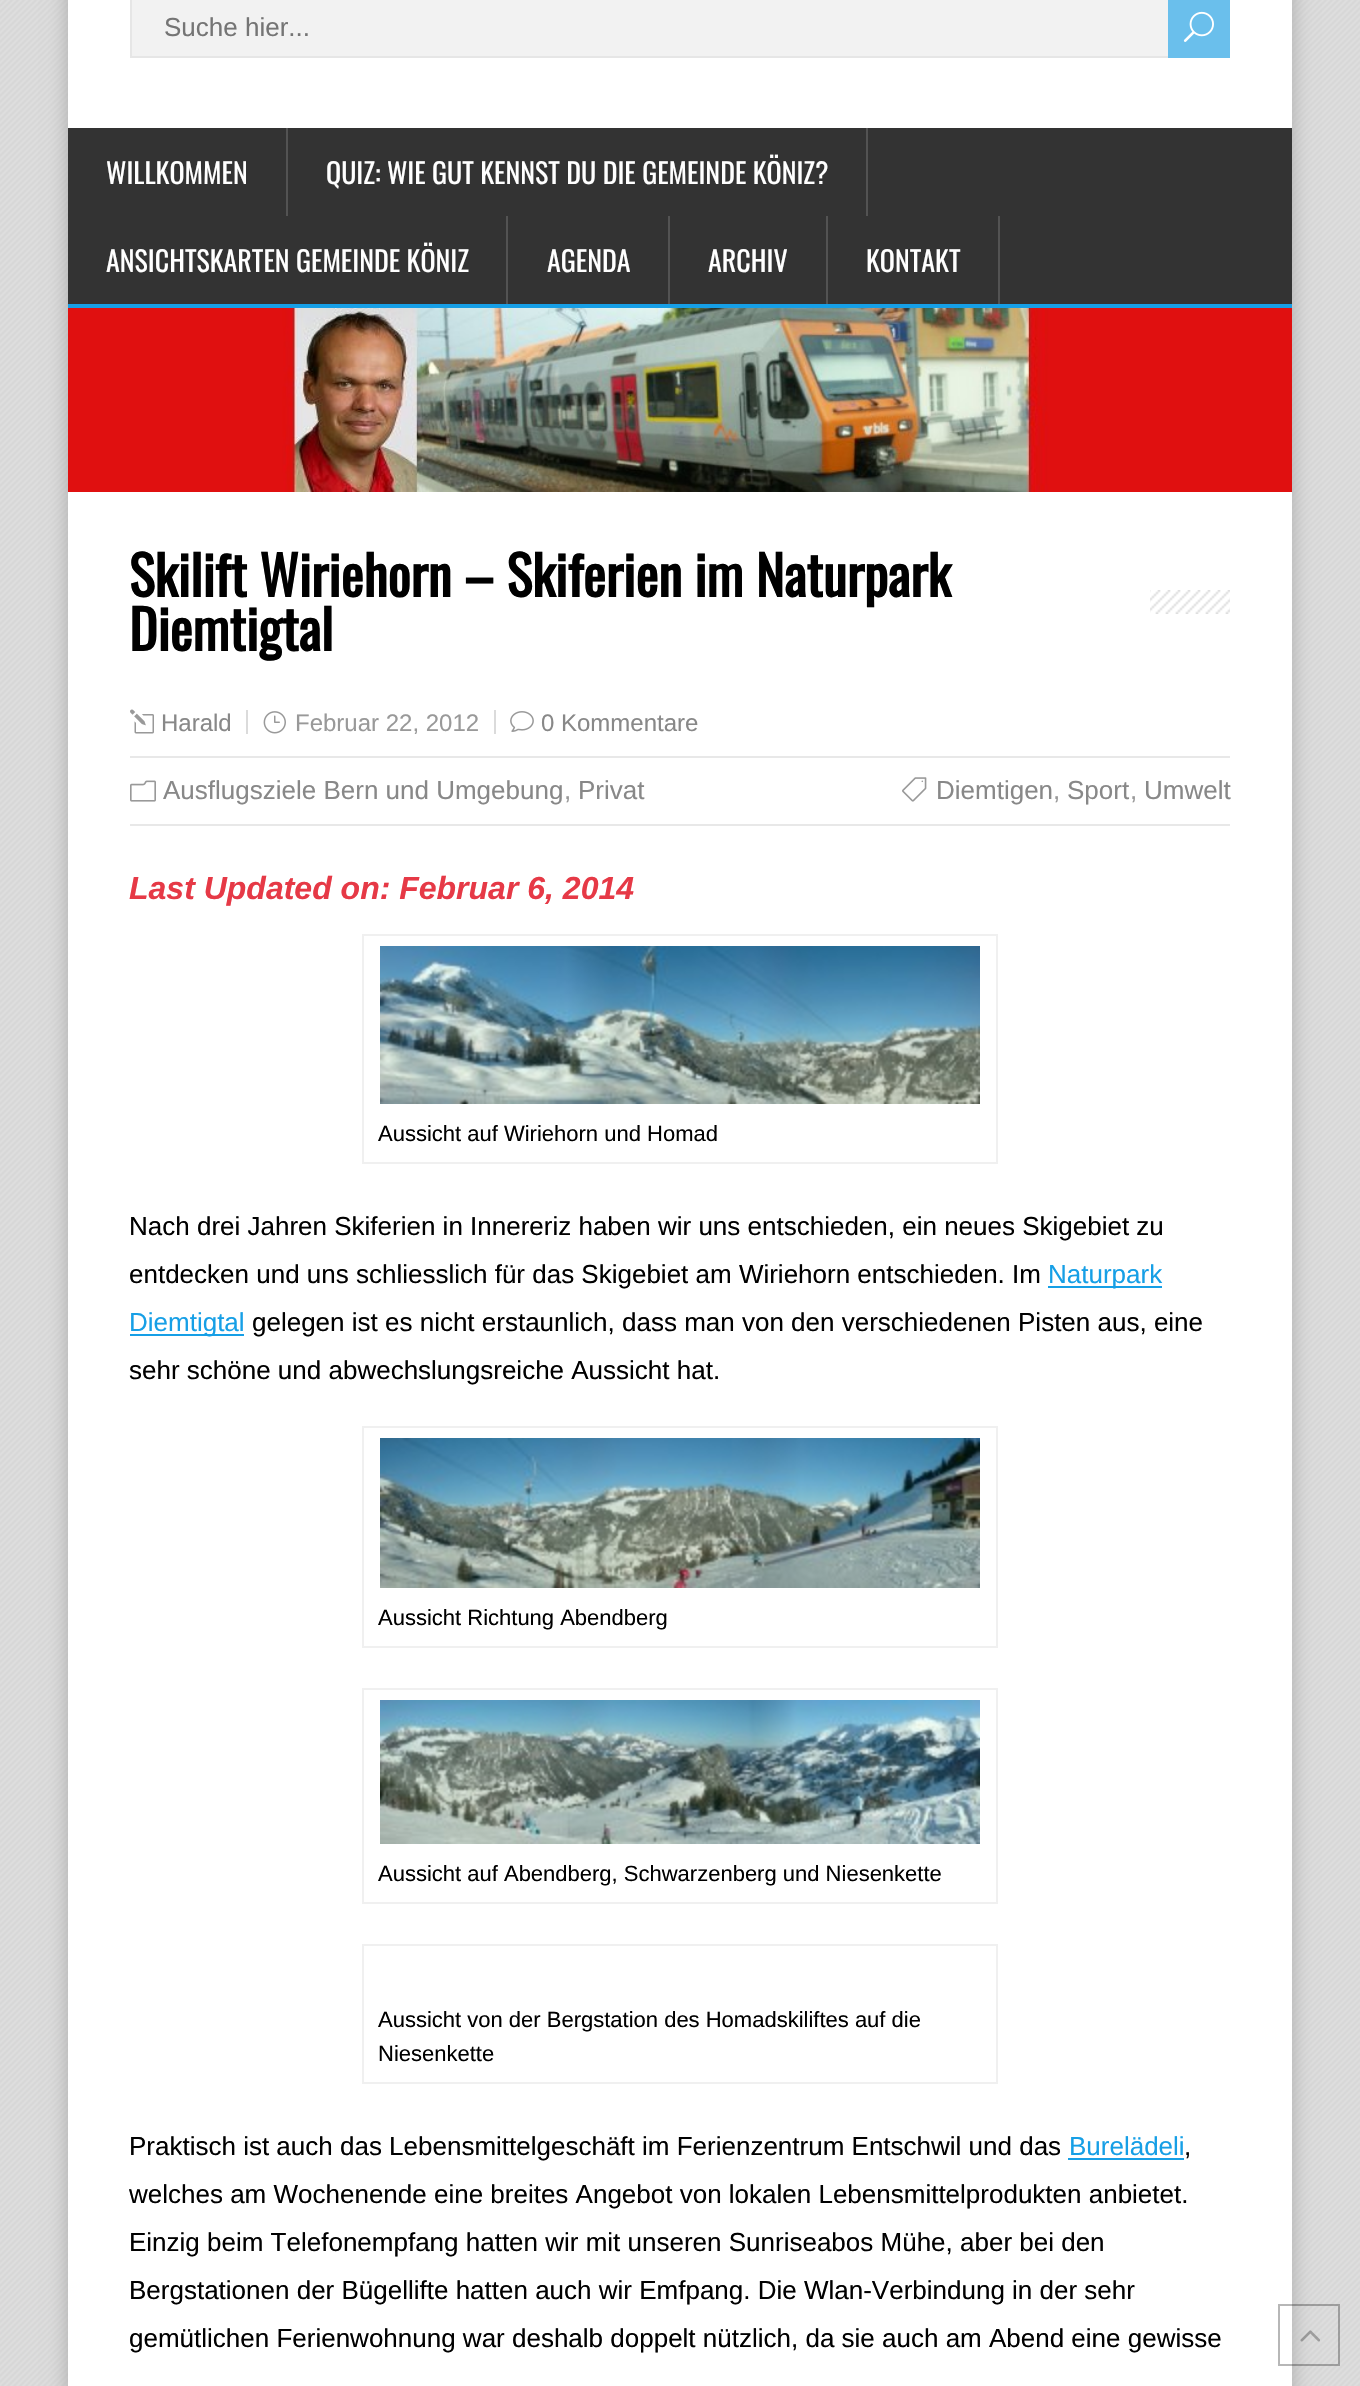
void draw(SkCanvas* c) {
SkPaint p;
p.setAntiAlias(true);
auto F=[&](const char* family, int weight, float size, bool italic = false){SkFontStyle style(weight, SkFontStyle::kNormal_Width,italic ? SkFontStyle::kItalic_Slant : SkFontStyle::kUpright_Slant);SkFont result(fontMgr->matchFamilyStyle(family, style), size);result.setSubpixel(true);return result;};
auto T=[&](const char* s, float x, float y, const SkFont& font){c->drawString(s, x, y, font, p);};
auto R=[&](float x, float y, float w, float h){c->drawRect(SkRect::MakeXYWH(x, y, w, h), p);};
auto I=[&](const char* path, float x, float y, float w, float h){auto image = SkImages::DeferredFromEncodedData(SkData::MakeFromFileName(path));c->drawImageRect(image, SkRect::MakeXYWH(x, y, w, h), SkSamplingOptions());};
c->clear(0xffdedede);
I("1.png",0,0,1360,2386);
p.setColor(0xffaaaaaa);
p.setMaskFilter(SkMaskFilter::MakeBlur(kNormal_SkBlurStyle, 10));
c->drawRect(SkRect::MakeXYWH(68,-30,1224,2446),p);
p.setMaskFilter(nullptr);
p.setColor(0xffffffff);
R(68,0,1224,2386);
p.setColor(0xfff2f2f2);
R(132,0,1036,56);
p.setStroke(true);
p.setStrokeWidth(2);
p.setColor(0xffe6e6e6);
c->drawRect(SkRect::MakeXYWH(131,-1,1092,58),p);
auto f1 = F("Liberation Sans",400,26);
p.setStroke(false);
p.setColor(0xff757575);
T("Suche hier...",164,36,f1);
p.setColor(0xff6abfec);
R(1168,0,62,58);
I("2.png",1183,11,31,31);
p.setColor(0xff333333);
R(68,128,1224,176);
p.setColor(0xff169fe6);
R(68,304,1224,4);
p.setColor(0xff535353);
R(286,128,2,88);
auto f2 = F("Oswald",400,28);
p.setColor(0xffffffff);
T("WILLKOMMEN",106,184,f2);
p.setColor(0xff535353);
R(866,128,2,88);
p.setColor(0xffffffff);
T("QUIZ: WIE GUT KENNST DU DIE GEMEINDE KÖNIZ?",326,184,f2);
p.setColor(0xff535353);
R(506,216,2,88);
p.setColor(0xffffffff);
T("ANSICHTSKARTEN GEMEINDE KÖNIZ",106,272,f2);
p.setColor(0xff535353);
R(668,216,2,88);
p.setColor(0xffffffff);
T("AGENDA",547,272,f2);
p.setColor(0xff535353);
R(826,216,2,88);
p.setColor(0xffffffff);
T("ARCHIV",708,272,f2);
p.setColor(0xff535353);
R(998,216,2,88);
p.setColor(0xffffffff);
T("KONTAKT",866,272,f2);
I("3.png",68,308,1224,184);
I("4.png",1150,590,80,24);
auto f3 = F("Oswald",700,54);
p.setColor(0xff000000);
T("Skilift Wiriehorn – Skiferien im Naturpark",129,597,f3);
T("Diemtigtal",129,651,f3);
I("5.png",130,709,24,25);
auto f4 = F("Liberation Sans",400,24);
p.setColor(0xff888888);
T("Harald",161,731,f4);
I("6.png",263,711,23,23);
p.setColor(0xff999999);
T("Februar 22, 2012",295,731,f4);
p.setColor(0xffdbdbdb);
R(246,710,2,24);
I("7.png",510,711,24,21);
p.setColor(0xff888888);
T("0 Kommentare",541,731,f4);
p.setColor(0xffdbdbdb);
R(494,710,2,24);
p.setColor(0xffe8e8e8);
R(130,756,1100,2);
R(130,824,1100,2);
I("8.png",130,780,26,22);
p.setColor(0xff888888);
T("Ausflugsziele Bern und Umgebung",163,799,f1);
p.setColor(0xff999999);
T(",",564,799,f1);
p.setColor(0xff888888);
T("Privat",578,799,f1);
I("9.png",902,777,25,25);
T("Diemtigen",936,799,f1);
p.setColor(0xff999999);
T(",",1053,799,f1);
p.setColor(0xff888888);
T("Sport",1067,799,f1);
p.setColor(0xff999999);
T(",",1130,799,f1);
p.setColor(0xff888888);
T("Umwelt",1144,799,f1);
auto f5 = F("Liberation Sans",700,32,true);
p.setColor(0xffe63946);
T("Last Updated on: Februar 6, 2014",129,899,f5);
p.setStroke(true);
p.setColor(0xfff0f0f0);
c->drawRect(SkRect::MakeXYWH(363,935,634,228),p);
I("10.png",380,946,600,158);
auto f6 = F("Liberation Sans",400,22);
p.setStroke(false);
p.setColor(0xff000000);
T("Aussicht auf Wiriehorn und Homad",378,1141,f6);
T("Nach drei Jahren Skiferien in Innereriz haben wir uns entschieden, ein neues Skigebiet zu",129,1235,f1);
T("entdecken und uns schliesslich für das Skigebiet am Wiriehorn entschieden. Im",129,1283,f1);
p.setColor(0xff169fe6);
R(1048,1286,114,2);
T("Naturpark",1048,1283,f1);
R(130,1334,114,2);
T("Diemtigtal",129,1331,f1);
p.setColor(0xff000000);
T("gelegen ist es nicht erstaunlich, dass man von den verschiedenen Pisten aus, eine",252,1331,f1);
T("sehr schöne und abwechslungsreiche Aussicht hat.",129,1379,f1);
p.setStroke(true);
p.setColor(0xfff0f0f0);
c->drawRect(SkRect::MakeXYWH(363,1427,634,220),p);
I("11.png",380,1438,600,150);
p.setStroke(false);
p.setColor(0xff000000);
T("Aussicht Richtung Abendberg",378,1625,f6);
p.setStroke(true);
p.setColor(0xfff0f0f0);
c->drawRect(SkRect::MakeXYWH(363,1689,634,214),p);
I("12.png",380,1700,600,144);
p.setStroke(false);
p.setColor(0xff000000);
T("Aussicht auf Abendberg, Schwarzenberg und Niesenkette",378,1881,f6);
p.setStroke(true);
p.setColor(0xfff0f0f0);
c->drawRect(SkRect::MakeXYWH(363,1945,634,138),p);
p.setStroke(false);
p.setColor(0xff000000);
T("Aussicht von der Bergstation des Homadskiliftes auf die",378,2027,f6);
T("Niesenkette",378,2061,f6);
T("Praktisch ist auch das Lebensmittelgeschäft im Ferienzentrum Entschwil und das",129,2155,f1);
p.setColor(0xff169fe6);
T("Burelädeli",1069,2155,f1);
R(1068,2158,116,2);
p.setColor(0xff000000);
T(",",1184,2155,f1);
T("welches am Wochenende eine breites Angebot von lokalen Lebensmittelprodukten anbietet.",129,2203,f1);
T("Einzig beim Telefonempfang hatten wir mit unseren Sunriseabos Mühe, aber bei den",129,2251,f1);
T("Bergstationen der Bügellifte hatten auch wir Emfpang. Die Wlan-Verbindung in der sehr",129,2299,f1);
T("gemütlichen Ferienwohnung war deshalb doppelt nützlich, da sie auch am Abend eine gewisse",129,2347,f1);
p.setStroke(true);
p.setColor(0x4d111111);
c->drawRect(SkRect::MakeXYWH(1279,2305,60,60),p);
I("13.png",1300,2330,20,12);
}
